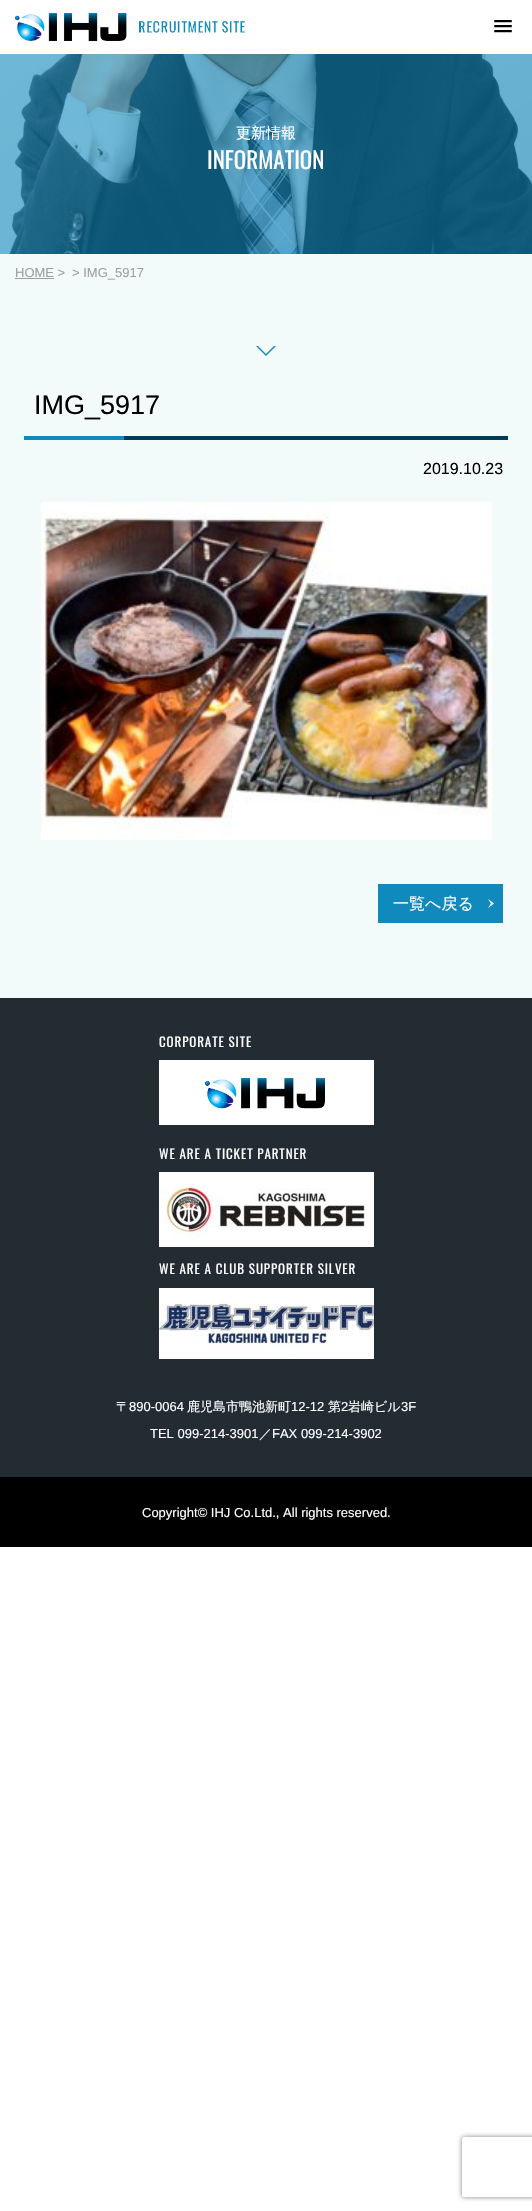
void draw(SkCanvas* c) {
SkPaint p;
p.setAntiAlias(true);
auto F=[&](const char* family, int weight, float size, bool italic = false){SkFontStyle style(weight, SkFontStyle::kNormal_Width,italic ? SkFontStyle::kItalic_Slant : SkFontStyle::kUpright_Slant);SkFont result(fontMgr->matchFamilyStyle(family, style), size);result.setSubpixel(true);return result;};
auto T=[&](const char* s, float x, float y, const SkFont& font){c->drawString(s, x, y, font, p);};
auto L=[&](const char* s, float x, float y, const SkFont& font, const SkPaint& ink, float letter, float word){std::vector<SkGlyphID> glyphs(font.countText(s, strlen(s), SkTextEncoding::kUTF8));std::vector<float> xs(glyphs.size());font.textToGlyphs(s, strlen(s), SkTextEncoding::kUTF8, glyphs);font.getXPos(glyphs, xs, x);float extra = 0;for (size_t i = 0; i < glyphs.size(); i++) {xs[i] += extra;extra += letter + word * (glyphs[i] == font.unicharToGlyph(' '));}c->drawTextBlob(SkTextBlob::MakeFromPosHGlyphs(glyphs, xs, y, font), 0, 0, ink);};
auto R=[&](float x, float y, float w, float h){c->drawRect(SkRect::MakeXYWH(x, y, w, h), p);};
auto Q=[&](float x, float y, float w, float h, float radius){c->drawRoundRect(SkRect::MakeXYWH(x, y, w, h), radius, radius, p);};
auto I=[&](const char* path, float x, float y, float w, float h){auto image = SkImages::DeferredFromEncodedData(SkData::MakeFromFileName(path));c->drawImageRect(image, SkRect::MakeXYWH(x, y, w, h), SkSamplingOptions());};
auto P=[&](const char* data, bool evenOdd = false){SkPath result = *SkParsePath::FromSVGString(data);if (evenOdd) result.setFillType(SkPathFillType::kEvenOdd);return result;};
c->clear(0xffffffff);
I("1.png",15,13,230,28);
p.setColor(0xffbfbfbf);
c->drawPath(P("M494 21.5c-1 2 3.5 1.5 3.5 1.5h11c0 0 4.5 .5 3.5-1.5c-1 1-7.5 .5-9 .5c-1.5 0-8 .5-9-.5z"),p);
p.setColor(0xff000000);
Q(494,20,18,2,1);
p.setColor(0xffbfbfbf);
c->drawPath(P("M494 26.5c-1 2 3.5 1.5 3.5 1.5h11c0 0 4.5 .5 3.5-1.5c-1 1-7.5 .5-9 .5c-1.5 0-8 .5-9-.5z"),p);
p.setColor(0xff000000);
Q(494,25,18,2,1);
p.setColor(0xffbfbfbf);
c->drawPath(P("M494 31.5c-1 2 3.5 1.5 3.5 1.5h11c0 0 4.5 .5 3.5-1.5c-1 1-7.5 .5-9 .5c-1.5 0-8 .5-9-.5z"),p);
p.setColor(0xff000000);
Q(494,30,18,2,1);
p.setColor(0xfff3fafa);
R(0,254,532,744);
I("2.png",0,54,532,200);
auto f1 = F("WenQuanYi Zen Hei",500,15);
p.setColor(0xffffffff);
T("更新情報",236,138,f1);
auto f2 = F("Oswald",400,23);
T("INFORMATION",207,169,f2);
auto f3 = F("Liberation Sans",400,13);
p.setColor(0xff9e9e9e);
T("HOME >",15,277,f3);
R(15,278,39,1);
T("> IMG_5917",72,277,f3);
p.setColor(0xff1089bd);
c->drawPath(P("M256 346h20l-10 10z"),p);
p.setColor(0xfff3fafa);
c->drawPath(P("M256 344h20l-10 10z"),p);
p.setColor(0xff003a59);
R(124,436,384,4);
auto f4 = F("Liberation Sans",400,27);
p.setColor(0xff000000);
T("IMG_5917",34,414,f4);
p.setColor(0xff1089bd);
R(24,436,100,4);
auto f5 = F("Liberation Sans",400,16);
p.setColor(0xff000000);
T("2019.10.23",423,474,f5);
I("3.png",41,502,451,338);
p.setColor(0xff1089bd);
R(378,884,125,39);
auto f6 = F("WenQuanYi Zen Hei",500,16);
p.setColor(0xffffffff);
T("一覧へ戻る",393,909,f6);
I("4.png",488,899,6,9);
p.setColor(0xff232c32);
R(0,998,532,479);
auto f7 = F("Oswald",400,13);
p.setColor(0xffffffff);
L("CORPORATE SITE",159,1047,f7,p,.9,0);
I("5.png",159,1060,215,65);
L("WE ARE A TICKET PARTNER",159,1159,f7,p,.9,0);
I("6.png",159,1172,215,75);
L("WE ARE A CLUB SUPPORTER SILVER",159,1274,f7,p,.9,0);
I("7.png",159,1288,215,71);
auto f8 = F("WenQuanYi Zen Hei",500,13);
T("〒",116,1411,f8);
T("890-0064",129,1411,f3);
T("鹿児島市鴨池新町",187,1411,f8);
T("12-12",291,1411,f3);
T("第",328,1411,f8);
T("2",341,1411,f3);
T("岩崎ビル",348,1411,f8);
T("3F",401,1411,f3);
T("TEL 099-214-3901",150,1438,f3);
T("／",259,1438,f8);
T("FAX 099-214-3902",272,1438,f3);
p.setColor(0xff000000);
R(0,1477,532,70);
p.setColor(0xffffffff);
T("Copyright© IHJ Co.Ltd., All rights reserved.",142,1517,f3);
c->save();
c->clipPath(P("M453 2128h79v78h-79zm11 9h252c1 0 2 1 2 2v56c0 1-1 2-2 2h-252c-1 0-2-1-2-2v-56c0-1 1-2 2-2z",true),true);
p.setColor(0xff808080);
p.setMaskFilter(SkMaskFilter::MakeBlur(kNormal_SkBlurStyle, 2.5));
c->drawRoundRect(SkRect::MakeXYWH(462,2137,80,60),2,2,p);
p.setMaskFilter(nullptr);
c->restore();
}
